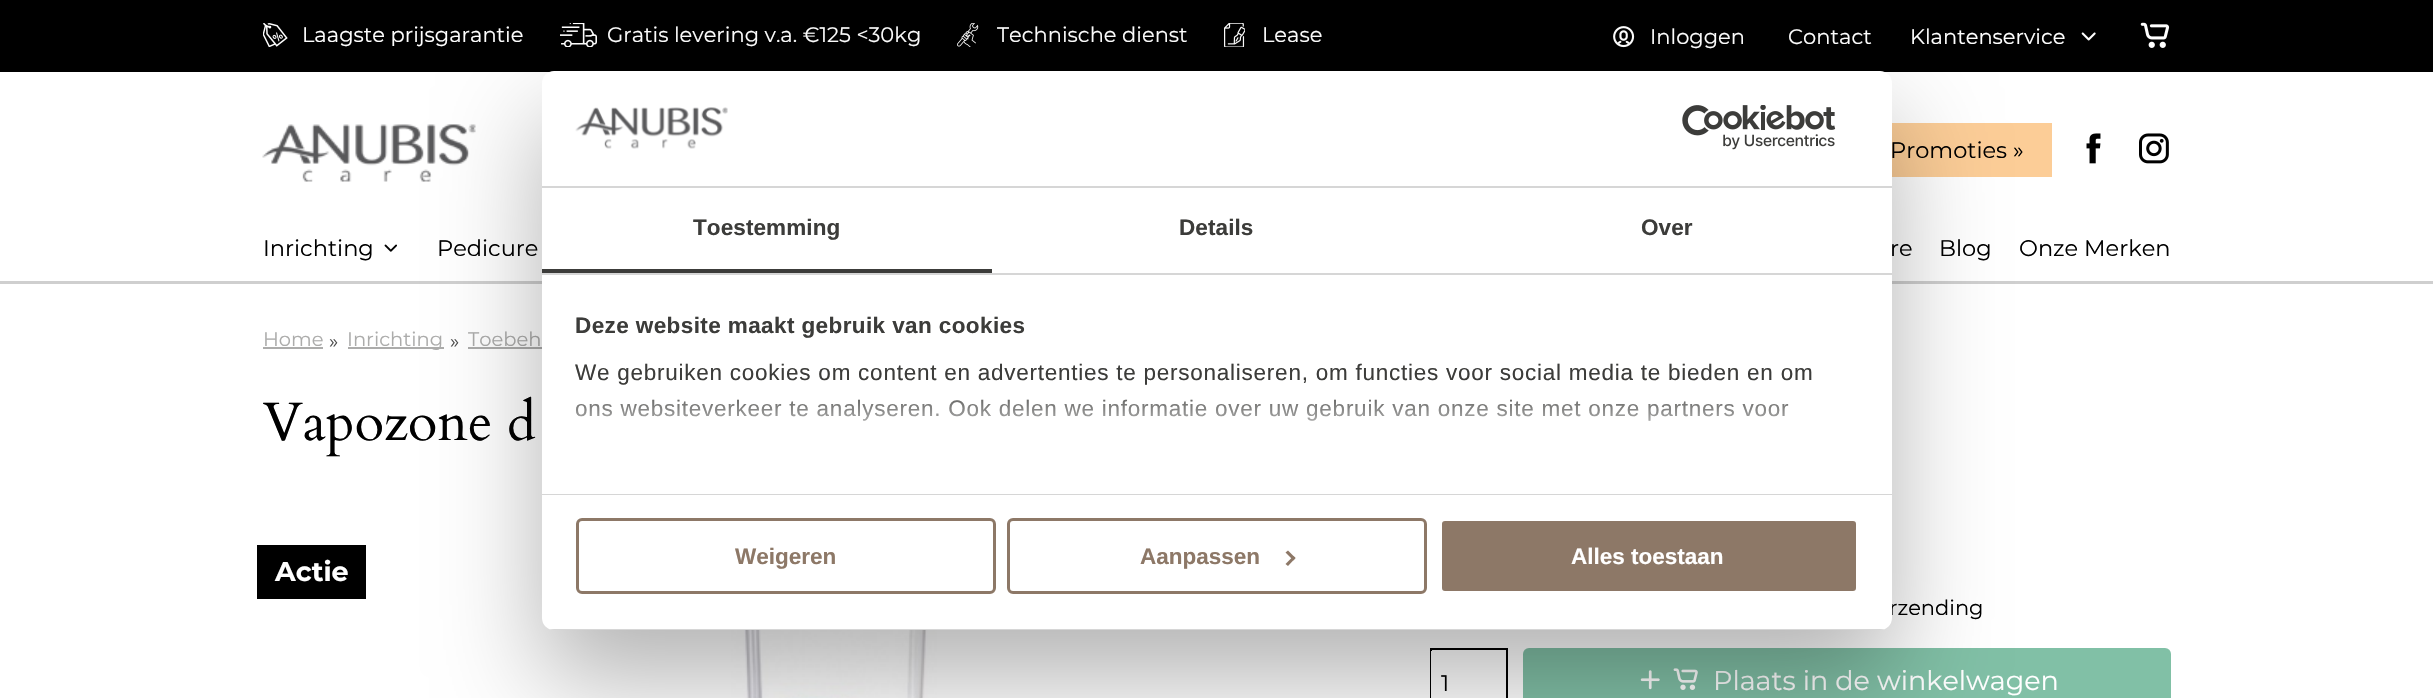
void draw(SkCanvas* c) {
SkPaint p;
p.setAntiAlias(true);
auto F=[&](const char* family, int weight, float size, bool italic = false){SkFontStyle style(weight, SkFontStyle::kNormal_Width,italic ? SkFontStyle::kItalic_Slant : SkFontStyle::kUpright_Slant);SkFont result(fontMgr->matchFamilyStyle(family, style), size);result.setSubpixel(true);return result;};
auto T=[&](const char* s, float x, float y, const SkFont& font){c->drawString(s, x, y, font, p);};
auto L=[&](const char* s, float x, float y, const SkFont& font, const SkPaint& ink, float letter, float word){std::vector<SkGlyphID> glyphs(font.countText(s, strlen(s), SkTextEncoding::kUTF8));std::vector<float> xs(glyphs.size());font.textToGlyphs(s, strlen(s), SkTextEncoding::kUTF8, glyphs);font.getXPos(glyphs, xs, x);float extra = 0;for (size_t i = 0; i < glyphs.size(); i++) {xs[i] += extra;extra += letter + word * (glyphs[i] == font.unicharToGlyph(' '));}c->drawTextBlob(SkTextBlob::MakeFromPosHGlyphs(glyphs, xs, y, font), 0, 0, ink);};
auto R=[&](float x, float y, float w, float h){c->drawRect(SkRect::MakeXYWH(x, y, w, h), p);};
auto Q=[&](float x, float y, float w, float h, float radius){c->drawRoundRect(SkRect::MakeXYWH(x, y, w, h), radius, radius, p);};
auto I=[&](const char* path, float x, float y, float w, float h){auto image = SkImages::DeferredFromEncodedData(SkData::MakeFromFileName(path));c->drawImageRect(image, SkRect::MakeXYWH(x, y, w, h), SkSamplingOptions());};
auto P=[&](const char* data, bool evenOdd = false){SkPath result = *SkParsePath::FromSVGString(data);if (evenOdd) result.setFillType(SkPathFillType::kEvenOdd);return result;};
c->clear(0xffffffff);
p.setColor(0xff000000);
R(0,0,2433,72);
I("1.png",263,23,25,24);
auto f1 = F("Montserrat",100,21);
p.setColor(0xffffffff);
T("Laagste prijsgarantie",302,42,f1);
I("2.png",560,23,37,24);
T("Gratis levering v.a. €125 <30kg",607,42,f1);
I("3.png",957,23,22,24);
T("Technische dienst",997,42,f1);
I("4.png",1224,23,21,24);
T("Lease",1262,42,f1);
I("5.png",1613,26,22,22);
T("Inloggen",1650,44,f1);
T("Contact",1788,44,f1);
T("Klantenservice",1910,44,f1);
I("6.png",2081,32,15,9);
I("7.png",2140,22,30,26);
I("8.png",262,124,214,58);
p.setColor(0xfffccd97);
R(1892,123,160,54);
auto f2 = F("Montserrat",100,22.5);
p.setColor(0xff000000);
T("Promoties »",1890,158,f2);
I("9.png",2086,133,15,31);
I("10.png",2139,133,30,31);
T("Inrichting",263,256,f2);
I("11.png",384,244,13,8);
T("Pedicure",437,256,f2);
T("re",1890,256,f2);
T("Blog",1939,256,f2);
T("Onze Merken",2019,256,f2);
p.setColor(0xffcfcfcf);
R(0,281,2433,3);
auto f3 = F("Montserrat",100,19.5);
p.setColor(0xffacacab);
T("Home",263,346,f3);
R(263,347,60,2);
p.setColor(0xff4d4d4d);
T("»",329,348,f3);
p.setColor(0xffacacab);
R(348,347,96,2);
T("Inrichting",347,346,f3);
p.setColor(0xff4d4d4d);
T("»",450,348,f3);
p.setColor(0xffacacab);
T("Toebeh",468,346,f3);
R(468,347,74,2);
auto f4 = F("Cardo",400,54);
p.setColor(0xff000000);
T("Vapozone d",263,440,f4);
R(257,545,109,54);
auto f5 = F("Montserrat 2",100,27);
p.setColor(0xffffffff);
T("Actie",275,581,f5);
I("12.png",731,630,206,68);
p.setColor(0xff000000);
T("rzending",1889,615,f1);
p.setStroke(true);
p.setStrokeWidth(2);
c->drawRect(SkRect::MakeXYWH(1431,649,76,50),p);
p.setStroke(false);
p.setColor(0xffffffff);
R(1431,651,1,47);
p.setColor(0xff000000);
T("1",1441,691,f2);
p.setColor(0xff81c0a6);
Q(1523,648,648,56,6);
I("13.png",1640,670,20,20);
I("14.png",1673,668,25,22);
auto f6 = F("Montserrat",100,27);
p.setColor(0xffffffff);
T("Plaats in de winkelwagen",1713,690,f6);
p.setColor(0x4d000000);
p.setMaskFilter(SkMaskFilter::MakeBlur(kNormal_SkBlurStyle, 51));
c->drawRoundRect(SkRect::MakeXYWH(542,119,1350,559),12,12,p);
p.setMaskFilter(nullptr);
p.setColor(0xffffffff);
Q(542,71,1350,559,12);
p.setColor(0xffd6d6d6);
R(542,186,1350,2);
I("15.png",575,107,153,42);
I("16.png",1682,105,154,45);
R(542,273,1350,2);
p.setColor(0xff3c3c3a);
R(542,269,450,4);
auto f7 = F("Liberation Sans",700,22.5);
L("Toestemming",693,235,f7,p,.1,0);
L("Details",1179,235,f7,p,.1,0);
L("Over",1641,235,f7,p,.1,0);
p.setColor(0xffd6d6d6);
R(542,494,1350,1);
p.setColor(0xff3c3c3a);
L("Deze website maakt gebruik van cookies",575,333,f7,p,.4,0);
auto f8 = F("Liberation Sans",400,22.5);
L("We gebruiken cookies om content en advertenties te personaliseren, om functies voor social media te bieden en om",575,380,f8,p,.75,0);
L("ons websiteverkeer te analyseren. Ook delen we informatie over uw gebruik van onze site met onze partners voor",575,416,f8,p,.75,0);
{
const SkColor colors[] = {0xffffffff,0xccffffff,0x00ffffff};
const float stops[] = {0,.5,1};
const SkPoint ends[] = {{1202,493}, {1202,383}};
p.setShader(SkGradientShader::MakeLinear(ends, colors, stops, 3, SkTileMode::kClamp));
p.setAlpha(255);
}
R(576,384,1213,37);
c->save();
c->clipPath(P("M554 71h1326c6.5 0 12 5.5 12 12v535c0 6.5-5.5 12-12 12h-1326c-6.5 0-12-5.5-12-12v-535c0-6.5 5.5-12 12-12z"),true);
p.setShader(nullptr);
p.setColor(0xffd6d6d6);
R(542,629,1350,1);
c->restore();
p.setStroke(true);
p.setStrokeWidth(3);
p.setColor(0xff8d7867);
c->drawRoundRect(SkRect::MakeXYWH(577.5,519.5,417,73),4.5,4.5,p);
p.setStroke(false);
T("Weigeren",735,564,f7);
p.setStroke(true);
c->drawRoundRect(SkRect::MakeXYWH(1008.5,519.5,417,73),4.5,4.5,p);
p.setStroke(false);
T("Aanpassen",1140,564,f7);
c->drawPath(P("M1288 550.5l7.5 7.5l-2 2.5l-8-8z"),p);
c->drawPath(P("M1293.5 556l2 2l-7.5 8l-2.5-2z"),p);
c->drawRoundRect(SkRect::MakeXYWH(1440.5,519.5,417,73),4.5,4.5,p);
p.setStroke(true);
p.setColor(0xffffffff);
c->drawRoundRect(SkRect::MakeXYWH(1440.5,519.5,417,73),4.5,4.5,p);
p.setStroke(false);
T("Alles toestaan",1571,564,f7);
}
